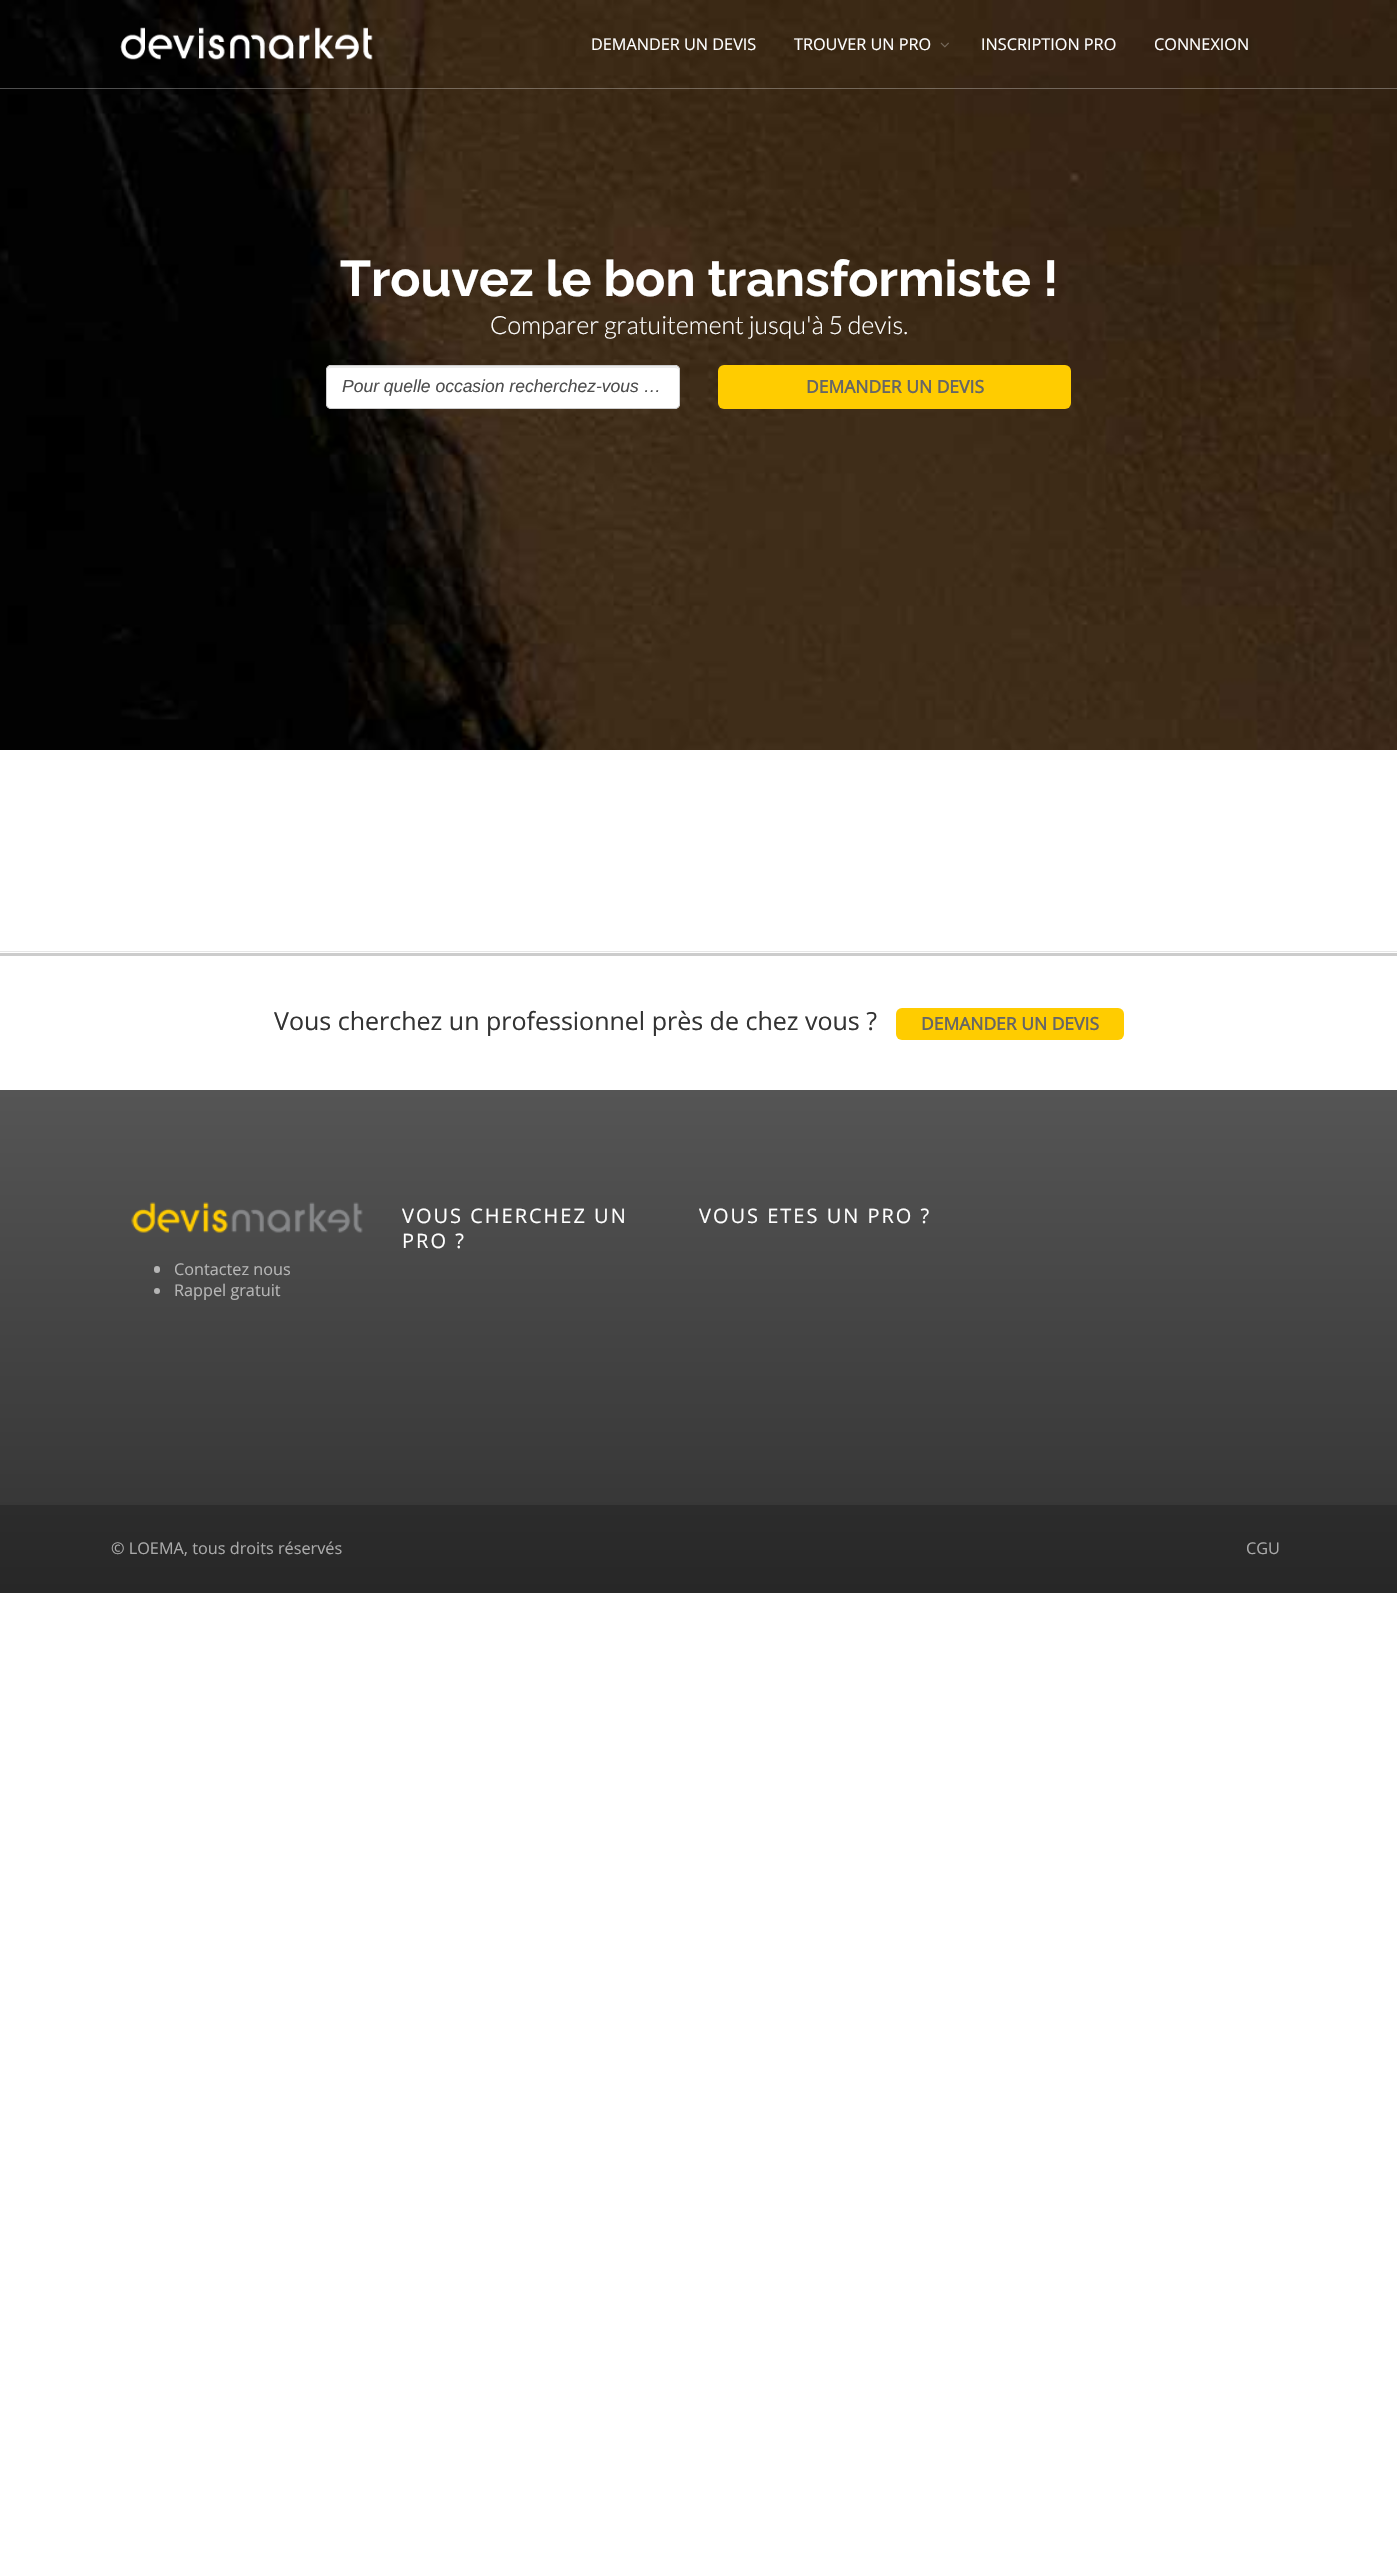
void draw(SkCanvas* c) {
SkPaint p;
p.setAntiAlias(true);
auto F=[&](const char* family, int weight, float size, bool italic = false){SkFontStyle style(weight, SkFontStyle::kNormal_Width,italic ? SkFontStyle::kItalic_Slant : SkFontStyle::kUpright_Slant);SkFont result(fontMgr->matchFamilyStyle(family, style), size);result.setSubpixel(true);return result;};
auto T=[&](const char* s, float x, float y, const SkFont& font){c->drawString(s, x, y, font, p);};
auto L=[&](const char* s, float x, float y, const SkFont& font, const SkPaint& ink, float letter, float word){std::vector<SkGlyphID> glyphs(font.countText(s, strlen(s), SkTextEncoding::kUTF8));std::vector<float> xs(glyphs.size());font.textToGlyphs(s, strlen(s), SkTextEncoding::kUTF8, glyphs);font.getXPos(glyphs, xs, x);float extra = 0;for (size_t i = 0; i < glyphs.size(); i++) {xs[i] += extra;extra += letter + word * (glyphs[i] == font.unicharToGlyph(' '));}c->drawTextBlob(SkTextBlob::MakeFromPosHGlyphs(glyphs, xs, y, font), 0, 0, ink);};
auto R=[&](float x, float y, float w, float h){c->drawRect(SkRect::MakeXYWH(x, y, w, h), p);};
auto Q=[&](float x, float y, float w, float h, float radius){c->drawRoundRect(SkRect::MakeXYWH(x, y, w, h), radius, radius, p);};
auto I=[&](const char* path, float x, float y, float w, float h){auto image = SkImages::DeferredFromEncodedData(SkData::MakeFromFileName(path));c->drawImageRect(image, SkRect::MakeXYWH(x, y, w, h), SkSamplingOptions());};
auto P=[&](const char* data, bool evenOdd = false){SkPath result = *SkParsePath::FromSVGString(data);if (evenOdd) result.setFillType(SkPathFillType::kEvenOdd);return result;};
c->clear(0xffffffff);
I("3.png",0,0,1397,750);
p.setColor(0x4dffffff);
R(0,88,1397,1);
I("1.png",120,27,253,33);
auto f1 = F("Open Sans",400,16.25);
p.setColor(0xffffffff);
T("DEMANDER UN DEVIS",591,50,f1);
T("TROUVER UN PRO",794,50,f1);
I("2.png",940,42,9,6);
T("INSCRIPTION PRO",981,50,f1);
T("CONNEXION",1154,50,f1);
auto f2 = F("Raleway",700,50);
T("Trouvez le bon transformiste !",340,296,f2);
auto f3 = F("Lato",300,25);
T("Comparer gratuitement jusqu'à 5 devis.",490,334,f3);
Q(326,365,354,44,5);
p.setColor(0xffececec);
c->drawPath(P("M331 368h344c2 0 4 1 4 3l-1-3l-2-2h-344c-3 0-4 2-4 5c0-2 1-3 3-3z"),p);
p.setStroke(true);
p.setStrokeWidth(1);
p.setColor(0xffcccccc);
c->drawRoundRect(SkRect::MakeXYWH(326.5,365.5,353,43),4.5,4.5,p);
auto f4 = F("Liberation Sans",400,17.5,true);
p.setStroke(false);
p.setColor(0xff4e4e4e);
T("Pour quelle occasion recherchez-vous …",342,392,f4);
p.setColor(0xffffcc00);
Q(718,365,353,44,6);
auto f5 = F("Open Sans",700,17.5);
p.setColor(0xff666666);
T("DEMANDER UN DEVIS",806,393,f5);
p.setColor(0xffe6e6e6);
R(0,951,1397,1);
p.setColor(0xffcccccc);
R(0,953,1397,3);
auto f6 = F("Open Sans",400,25);
p.setColor(0xff333333);
T("Vous cherchez un professionnel près de chez vous ?",274,1030,f6);
p.setColor(0xffffcc00);
Q(896,1008,228,32,6);
p.setColor(0xff666666);
T("DEMANDER UN DEVIS",921,1030,f5);
{
const SkColor colors[] = {0xff555555,0xff313131};
const float stops[] = {0,1};
const SkPoint ends[] = {{699,1090}, {699,1593}};
p.setShader(SkGradientShader::MakeLinear(ends, colors, stops, 2, SkTileMode::kClamp));
p.setAlpha(255);
}
R(0,1090,1397,415);
{
const SkColor colors[] = {0xff444444,0xff272727};
const float stops[] = {0,1};
const SkPoint ends[] = {{699,1090}, {699,1593}};
p.setShader(SkGradientShader::MakeLinear(ends, colors, stops, 2, SkTileMode::kClamp));
p.setAlpha(255);
}
R(0,1505,1397,88);
auto f7 = F("Open Sans",400,20);
p.setShader(nullptr);
p.setColor(0xffffffff);
L("VOUS CHERCHEZ UN",402,1223,f7,p,2,0);
L("PRO ?",402,1248,f7,p,2,0);
L("VOUS ETES UN PRO ?",699,1223,f7,p,2,0);
I("4.png",131,1202,232,31);
p.setColor(0xffb6b6b6);
Q(154,1266,6,7,3);
T("Contactez nous",174,1275,f1);
p.setColor(0xffb5b5b5);
c->drawCircle(157,1291,3,p);
p.setColor(0xffb6b6b6);
T("Rappel gratuit",174,1296,f1);
p.setColor(0xffaaaaaa);
T("© LOEMA, tous droits réservés",111,1554,f1);
T("CGU",1246,1554,f1);
}
